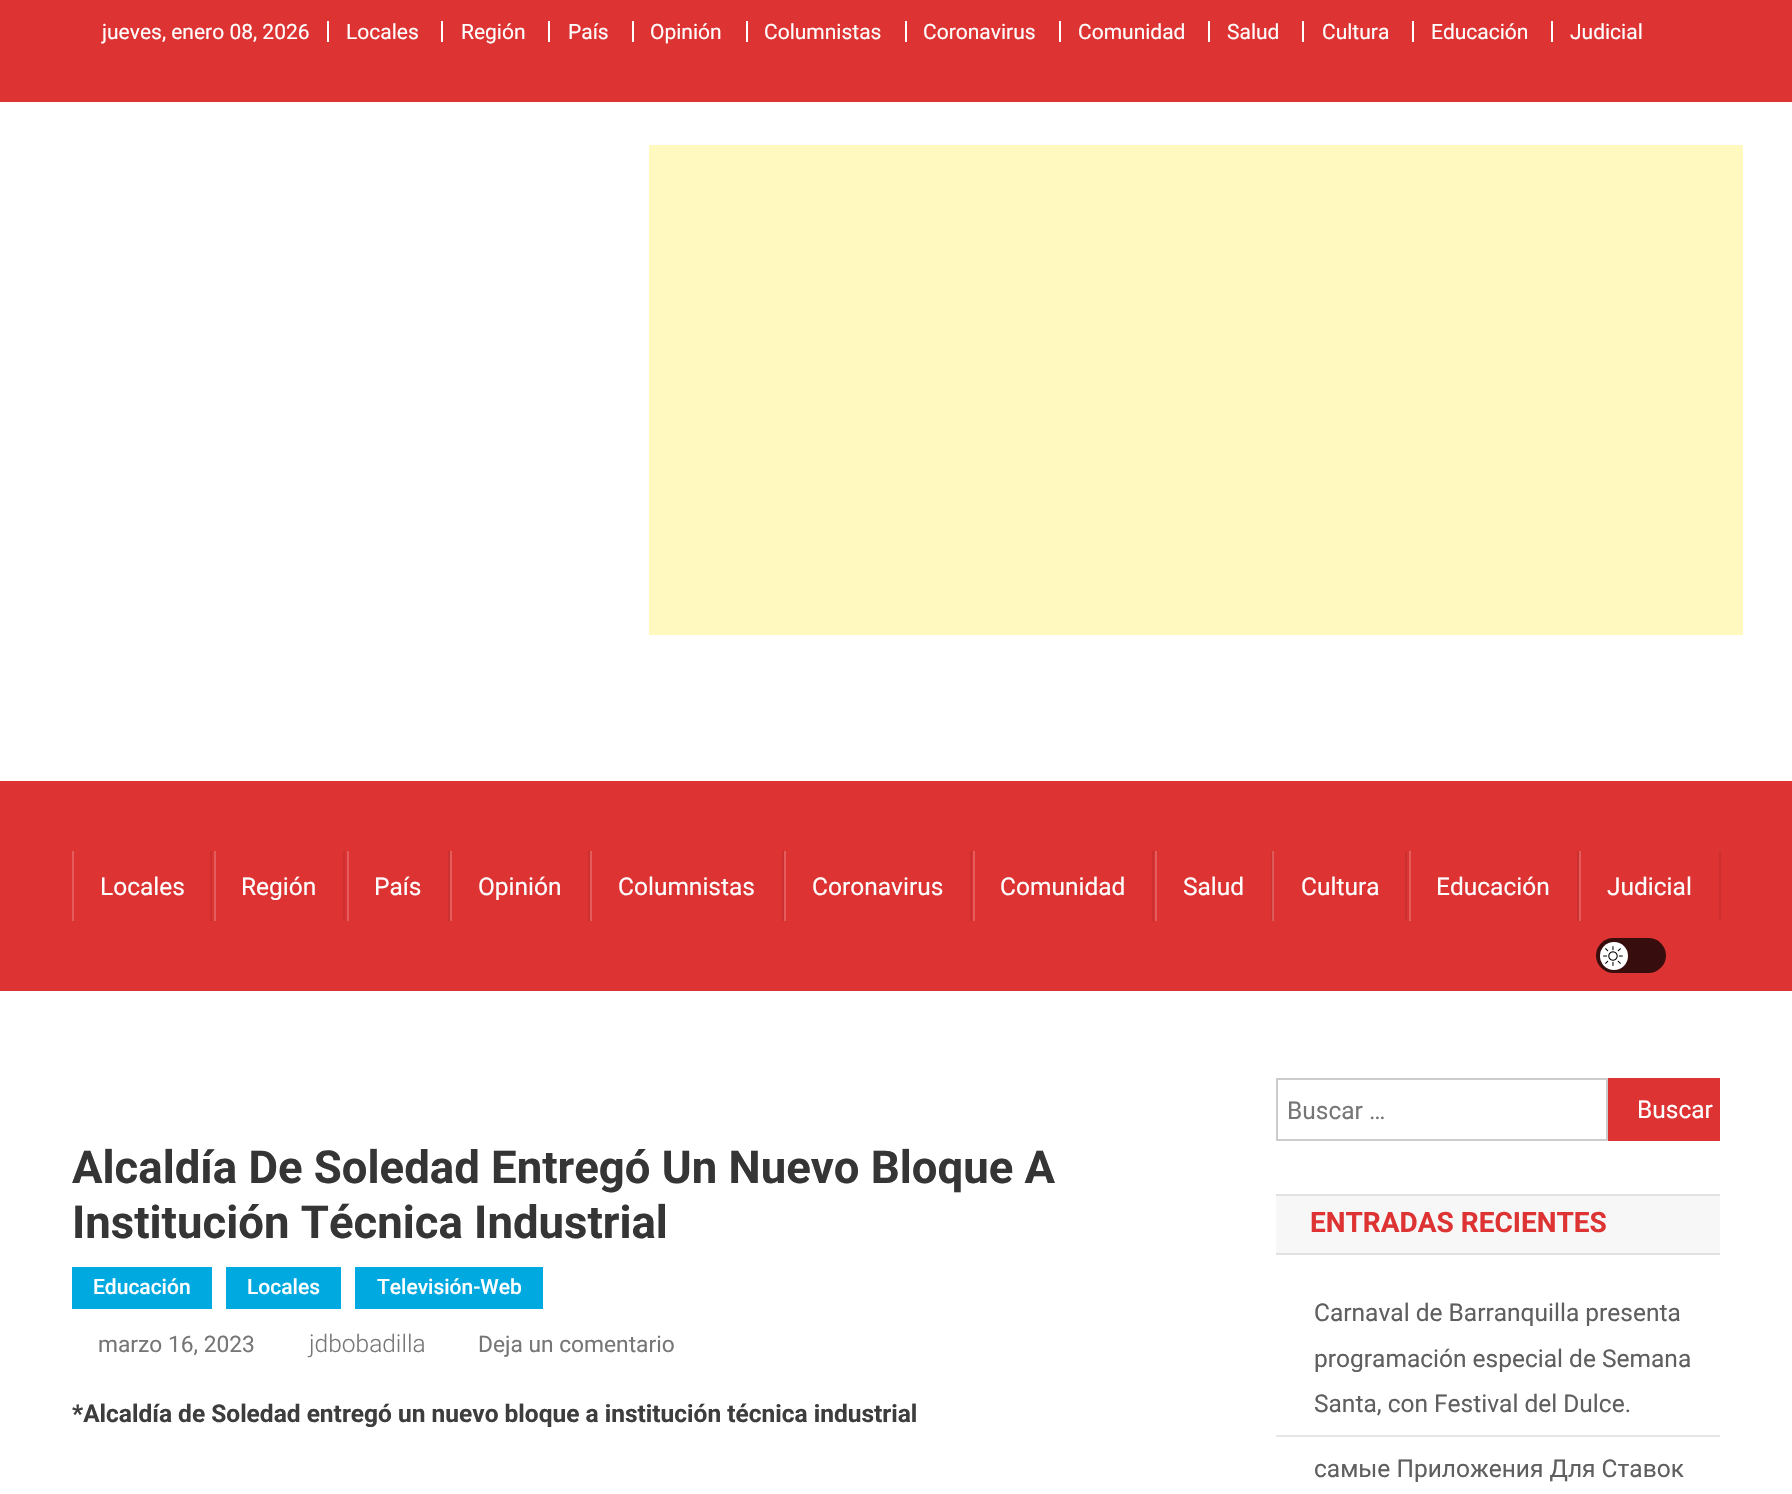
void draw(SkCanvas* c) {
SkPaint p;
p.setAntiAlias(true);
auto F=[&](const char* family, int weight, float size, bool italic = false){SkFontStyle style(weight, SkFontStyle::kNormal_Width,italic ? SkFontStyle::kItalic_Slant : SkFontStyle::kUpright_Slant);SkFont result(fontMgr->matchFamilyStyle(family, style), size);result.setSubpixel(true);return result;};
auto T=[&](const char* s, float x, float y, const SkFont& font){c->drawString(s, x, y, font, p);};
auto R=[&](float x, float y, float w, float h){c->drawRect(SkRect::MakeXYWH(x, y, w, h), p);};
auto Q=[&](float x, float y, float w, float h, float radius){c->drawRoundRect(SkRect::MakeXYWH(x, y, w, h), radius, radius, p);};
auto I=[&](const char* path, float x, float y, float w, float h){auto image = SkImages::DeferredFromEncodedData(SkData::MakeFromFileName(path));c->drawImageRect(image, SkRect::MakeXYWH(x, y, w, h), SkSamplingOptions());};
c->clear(0xffffffff);
p.setColor(0xffdd3333);
R(0,0,1792,102);
auto f1 = F("Roboto",400,21);
p.setColor(0xffffffff);
T("jueves, enero 08, 2026",102,39,f1);
R(327,21,2,21);
T("Locales",346,39,f1);
R(441,21,2,21);
T("Región",461,39,f1);
R(548,21,2,21);
T("País",568,39,f1);
R(632,21,2,21);
T("Opinión",650,39,f1);
R(746,21,2,21);
T("Columnistas",764,39,f1);
R(905,21,2,21);
T("Coronavirus",923,39,f1);
R(1059,21,2,21);
T("Comunidad",1078,39,f1);
R(1208,21,2,21);
T("Salud",1227,39,f1);
R(1302,21,2,21);
T("Cultura",1322,39,f1);
R(1412,21,2,21);
T("Educación",1431,39,f1);
R(1551,21,2,21);
T("Judicial",1570,39,f1);
p.setColor(0xfffff9c0);
R(649,145,1094,490);
p.setColor(0xffdd3333);
R(0,781,1792,210);
p.setColor(0xffe45c5c);
R(1273,851,1,70);
p.setColor(0xffcb2f2f);
R(210,851,2,70);
p.setColor(0xffe45c5c);
R(72,851,2,70);
auto f2 = F("Roboto",400,24.5);
p.setColor(0xffffffff);
T("Locales",100,895,f2);
p.setColor(0xffcb2f2f);
R(343,851,2,70);
p.setColor(0xffe45c5c);
R(214,851,2,70);
p.setColor(0xffffffff);
T("Región",241,895,f2);
p.setColor(0xffcb2f2f);
R(448,851,2,70);
p.setColor(0xffe45c5c);
R(347,851,2,70);
p.setColor(0xffffffff);
T("País",374,895,f2);
p.setColor(0xffcb2f2f);
R(588,851,2,70);
p.setColor(0xffe45c5c);
R(450,851,2,70);
p.setColor(0xffffffff);
T("Opinión",478,895,f2);
p.setColor(0xffcb2f2f);
R(782,851,2,70);
p.setColor(0xffe45c5c);
R(590,851,2,70);
p.setColor(0xffffffff);
T("Columnistas",618,895,f2);
p.setColor(0xffcb2f2f);
R(970,851,2,70);
p.setColor(0xffe45c5c);
R(784,851,2,70);
p.setColor(0xffffffff);
T("Coronavirus",812,895,f2);
p.setColor(0xffcb2f2f);
R(1152,851,2,70);
p.setColor(0xffe45c5c);
R(973,851,2,70);
p.setColor(0xffffffff);
T("Comunidad",1000,895,f2);
p.setColor(0xffcb2f2f);
R(1271,851,1,70);
p.setColor(0xffd55959);
R(1272,851,1,70);
p.setColor(0xffe45c5c);
R(1155,851,2,70);
p.setColor(0xffffffff);
T("Salud",1183,895,f2);
p.setColor(0xffcb2f2f);
R(1405,851,2,70);
p.setColor(0xffffffff);
T("Cultura",1301,895,f2);
p.setColor(0xffcb2f2f);
R(1577,851,2,70);
p.setColor(0xffe45c5c);
R(1409,851,2,70);
p.setColor(0xffffffff);
T("Educación",1436,895,f2);
p.setColor(0xffcb2f2f);
R(1719,851,2,70);
p.setColor(0xffe45c5c);
R(1579,851,2,70);
p.setColor(0xffffffff);
T("Judicial",1607,895,f2);
p.setColor(0xff370d0d);
Q(1596,938,70,35,17.5);
p.setColor(0xffffffff);
c->drawCircle(1614,956,14,p);
I("1.png",1603,946,20,20);
auto f3 = F("Roboto",700,45.5);
p.setColor(0xff353535);
T("Alcaldía De Soledad Entregó Un Nuevo Bloque A",72,1183,f3);
T("Institución Técnica Industrial",72,1238,f3);
p.setColor(0xff00a9e0);
R(72,1267,140,42);
auto f4 = F("Roboto",500,21);
p.setColor(0xffffffff);
T("Educación",93,1294,f4);
p.setColor(0xff00a9e0);
R(226,1267,115,42);
p.setColor(0xffffffff);
T("Locales",247,1294,f4);
p.setColor(0xff00a9e0);
R(355,1267,188,42);
p.setColor(0xffffffff);
T("Televisión-Web",377,1294,f4);
auto f5 = F("Roboto",400,22.75);
p.setColor(0xff767676);
T("marzo 16, 2023",98,1352,f5);
auto f6 = F("Roboto",300,24.5);
T("jdbobadilla",309,1352,f6);
T("Deja un comentario",478,1352,f5);
auto f7 = F("Roboto",700,24.5);
p.setColor(0xff3d3d3d);
T("*Alcaldía de Soledad entregó un nuevo bloque a institución técnica industrial",72,1422,f7);
p.setStroke(true);
p.setStrokeWidth(2);
p.setColor(0xffcccccc);
c->drawRect(SkRect::MakeXYWH(1277,1079,330,61),p);
p.setStroke(false);
p.setColor(0xff767676);
T("Buscar …",1287,1119,f2);
p.setColor(0xffdd3333);
R(1608,1078,112,63);
p.setColor(0xffffffff);
T("Buscar",1637,1118,f2);
p.setColor(0xfff7f7f7);
R(1276,1196,444,57);
p.setColor(0xffe1e1e1);
R(1276,1194,444,2);
R(1276,1253,444,2);
auto f8 = F("Roboto",700,28);
p.setColor(0xffdd3333);
T("ENTRADAS RECIENTES",1310,1232,f8);
p.setColor(0xffe6e6e6);
R(1276,1435,444,2);
p.setColor(0xff5f5f5f);
T("Carnaval de Barranquilla presenta",1314,1321,f2);
T("programación especial de Semana",1314,1367,f2);
T("Santa, con Festival del Dulce.",1314,1412,f2);
T("самые Приложения Для Ставок",1314,1477,f2);
}
